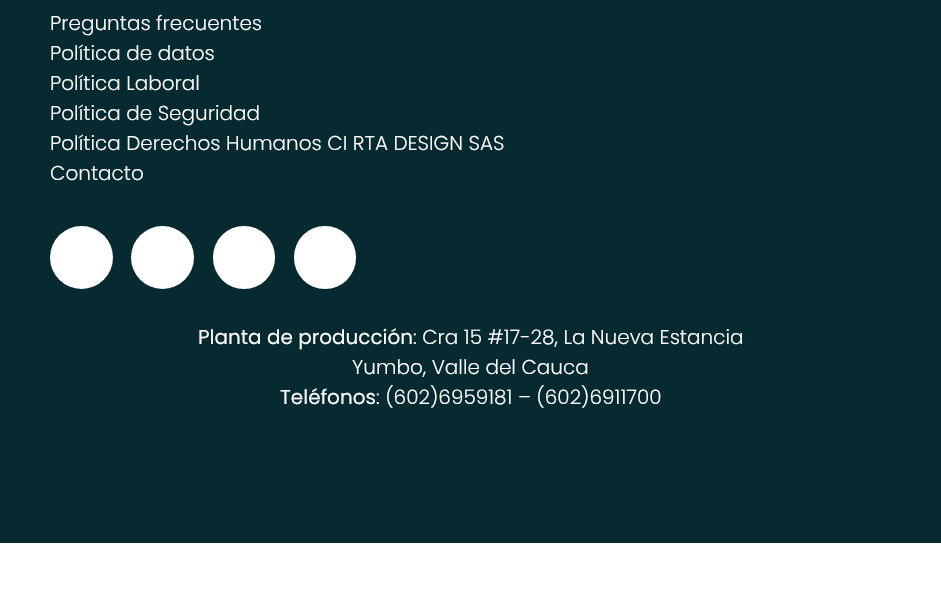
void draw(SkCanvas* c) {
SkPaint p;
p.setAntiAlias(true);
auto F=[&](const char* family, int weight, float size, bool italic = false){SkFontStyle style(weight, SkFontStyle::kNormal_Width,italic ? SkFontStyle::kItalic_Slant : SkFontStyle::kUpright_Slant);SkFont result(fontMgr->matchFamilyStyle(family, style), size);result.setSubpixel(true);return result;};
auto T=[&](const char* s, float x, float y, const SkFont& font){c->drawString(s, x, y, font, p);};
auto R=[&](float x, float y, float w, float h){c->drawRect(SkRect::MakeXYWH(x, y, w, h), p);};
auto Q=[&](float x, float y, float w, float h, float radius){c->drawRoundRect(SkRect::MakeXYWH(x, y, w, h), radius, radius, p);};
c->clear(0xffffffff);
p.setColor(0xff062a30);
R(0,0,941,543);
auto f1 = F("Poppins",300,20);
p.setColor(0xffffffff);
T("Preguntas frecuentes",50,30,f1);
T("Política de datos",50,60,f1);
T("Política Laboral",50,90,f1);
T("Política de Seguridad",50,120,f1);
T("Política Derechos Humanos CI RTA DESIGN SAS",50,150,f1);
T("Contacto",50,180,f1);
c->drawCircle(81.5,257.5,31.5,p);
c->drawCircle(162.5,257.5,31.5,p);
Q(213,226,62,63,31);
Q(294,226,62,63,31);
auto f2 = F("Poppins",400,20);
T("Planta de producción",198,344,f2);
T(": Cra 15 #17-28, La Nueva Estancia",413,344,f1);
T("Yumbo, Valle del Cauca",352,374,f1);
T("Teléfonos",280,404,f2);
T(": (602)6959181 – (602)6911700",376,404,f1);
}
